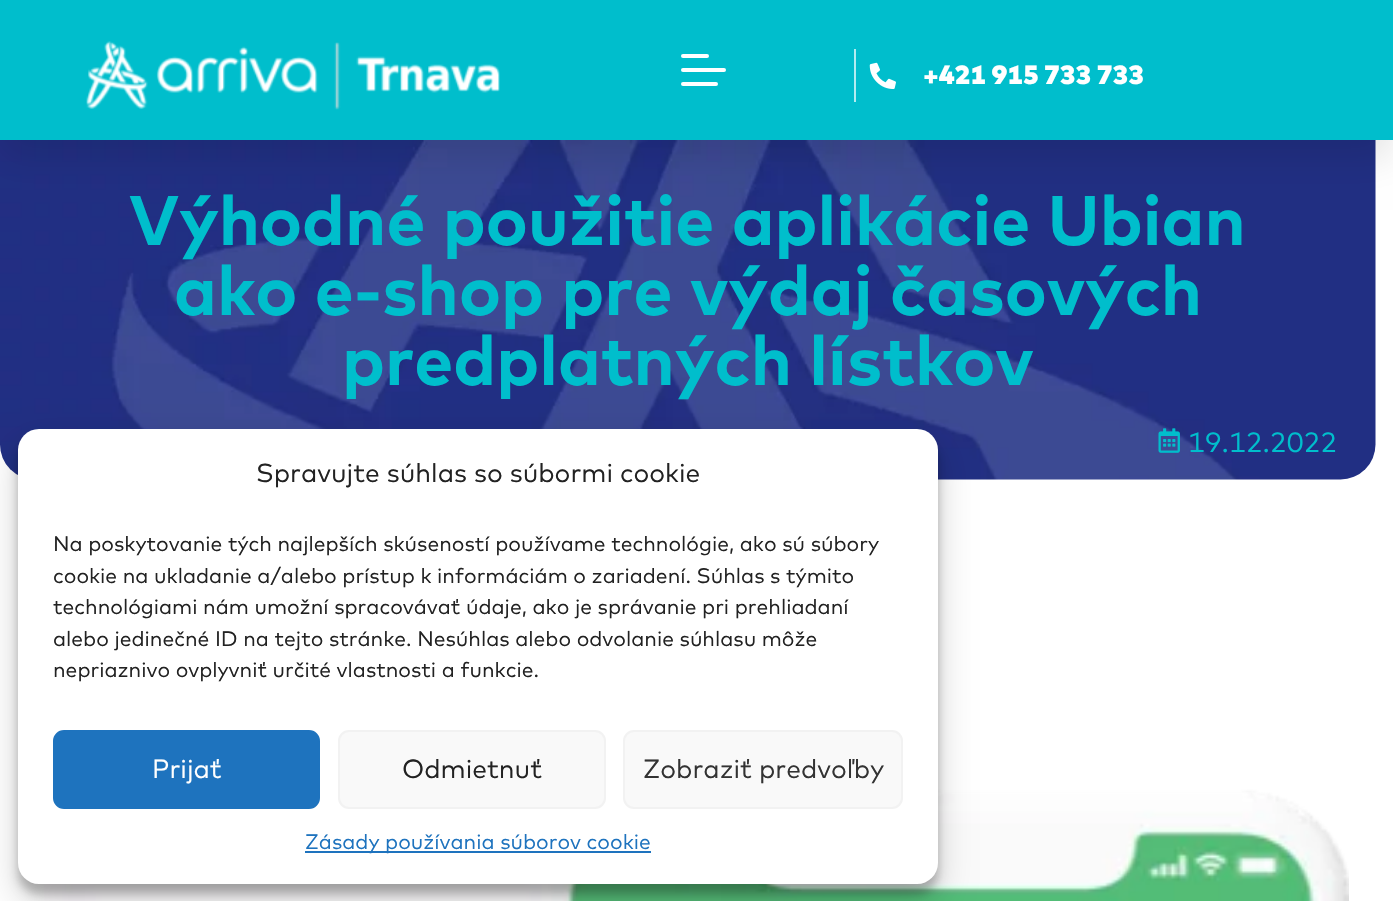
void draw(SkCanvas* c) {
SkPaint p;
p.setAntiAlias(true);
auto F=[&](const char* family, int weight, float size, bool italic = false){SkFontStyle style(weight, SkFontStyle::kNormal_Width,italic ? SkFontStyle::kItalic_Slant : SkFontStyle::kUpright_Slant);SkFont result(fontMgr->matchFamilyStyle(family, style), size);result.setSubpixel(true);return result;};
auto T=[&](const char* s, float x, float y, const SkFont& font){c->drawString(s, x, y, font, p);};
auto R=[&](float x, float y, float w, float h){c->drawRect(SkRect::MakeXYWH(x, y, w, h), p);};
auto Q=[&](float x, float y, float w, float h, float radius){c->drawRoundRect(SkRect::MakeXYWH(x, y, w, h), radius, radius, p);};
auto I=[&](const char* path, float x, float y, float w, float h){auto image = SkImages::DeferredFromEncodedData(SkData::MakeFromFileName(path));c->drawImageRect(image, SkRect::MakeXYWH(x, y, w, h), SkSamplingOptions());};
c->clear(0xffffffff);
I("3.png",0,140,1376,340);
p.setColor(0x1a000000);
p.setMaskFilter(SkMaskFilter::MakeBlur(kNormal_SkBlurStyle, 17.5));
c->drawRect(SkRect::MakeXYWH(0,18,1393,140),p);
p.setMaskFilter(nullptr);
p.setColor(0xff00becc);
R(0,0,1393,140);
I("1.png",86,41,414,69);
p.setColor(0xffffffff);
Q(681,68,45,4,2);
Q(681,54,28,4,2);
Q(681,82,37,4,2);
p.setColor(0xffb3ecf0);
R(854,49,2,53);
I("2.png",869,62,27,27);
auto f1 = F("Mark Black",900,26.25,true);
p.setColor(0xffffffff);
T("+421 915 733 733",923,84,f1);
auto f2 = F("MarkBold",700,70);
p.setColor(0xff00becc);
T("Výhodné použitie aplikácie Ubian",129,245,f2);
T("ako e-shop pre výdaj časových",174,315,f2);
T("predplatných lístkov",342,385,f2);
I("4.png",1158,428,22,25);
auto f3 = F("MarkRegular",400,28);
T("19.12.2022",1188,452,f3);
I("5.png",44,789,1305,112);
p.setColor(0x3b000000);
p.setMaskFilter(SkMaskFilter::MakeBlur(kNormal_SkBlurStyle, 5));
c->drawRoundRect(SkRect::MakeXYWH(18,439,920,455),21,21,p);
p.setMaskFilter(nullptr);
p.setColor(0x30000000);
p.setMaskFilter(SkMaskFilter::MakeBlur(kNormal_SkBlurStyle, 17.5));
c->drawRoundRect(SkRect::MakeXYWH(18,446,920,455),21,21,p);
p.setMaskFilter(nullptr);
p.setColor(0xffffffff);
Q(18,429,920,455,21);
auto f4 = F("MarkRegular",400,26.25);
p.setColor(0xff222222);
T("Spravujte súhlas so súbormi cookie",256,482,f4);
auto f5 = F("MarkRegular",400,21);
T("Na poskytovanie tých najlepších skúseností používame technológie, ako sú súbory",53,551,f5);
T("cookie na ukladanie a/alebo prístup k informáciám o zariadení. Súhlas s týmito",53,583,f5);
T("technológiami nám umožní spracovávať údaje, ako je správanie pri prehliadaní",53,614,f5);
T("alebo jedinečné ID na tejto stránke. Nesúhlas alebo odvolanie súhlasu môže",53,646,f5);
T("nepriaznivo ovplyvniť určité vlastnosti a funkcie.",53,677,f5);
p.setColor(0xff1e73be);
c->drawRoundRect(SkRect::MakeXYWH(54,731,265,77),10,10,p);
p.setStroke(true);
p.setStrokeWidth(2);
c->drawRoundRect(SkRect::MakeXYWH(54,731,265,77),10,10,p);
p.setStroke(false);
p.setColor(0xffffffff);
T("Prijať",152,778,f4);
p.setColor(0xfff9f9f9);
c->drawRoundRect(SkRect::MakeXYWH(339,731,266,77),10,10,p);
p.setStroke(true);
p.setColor(0xfff2f2f2);
c->drawRoundRect(SkRect::MakeXYWH(339,731,266,77),10,10,p);
p.setStroke(false);
p.setColor(0xff222222);
T("Odmietnuť",402,778,f4);
p.setColor(0xfff9f9f9);
c->drawRoundRect(SkRect::MakeXYWH(624,731,278,77),10,10,p);
p.setStroke(true);
p.setColor(0xfff2f2f2);
c->drawRoundRect(SkRect::MakeXYWH(624,731,278,77),10,10,p);
p.setStroke(false);
p.setColor(0xff333333);
T("Zobraziť predvoľby",643,778,f4);
p.setColor(0xff1e73be);
R(305,851,346,2);
T("Zásady používania súborov cookie",305,849,f5);
}
